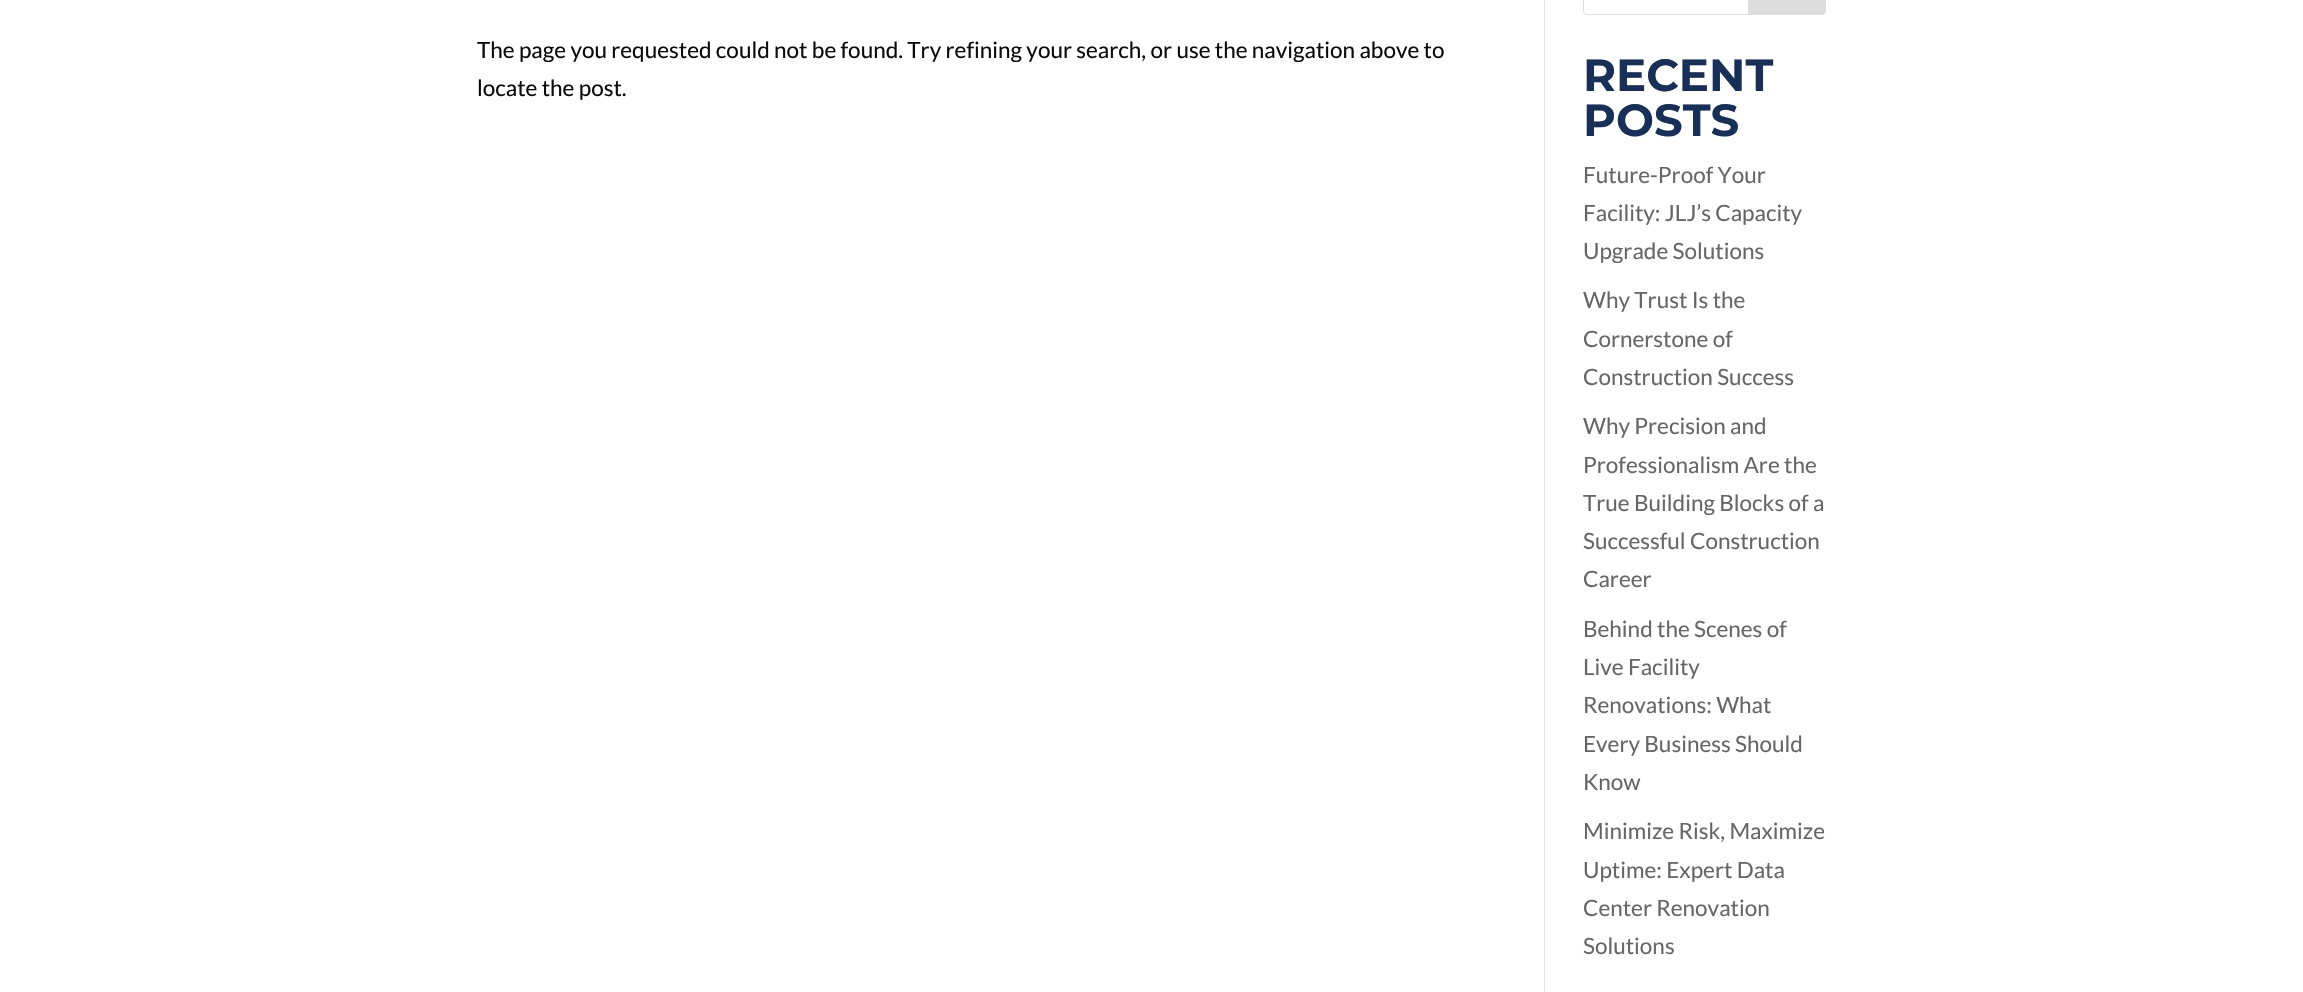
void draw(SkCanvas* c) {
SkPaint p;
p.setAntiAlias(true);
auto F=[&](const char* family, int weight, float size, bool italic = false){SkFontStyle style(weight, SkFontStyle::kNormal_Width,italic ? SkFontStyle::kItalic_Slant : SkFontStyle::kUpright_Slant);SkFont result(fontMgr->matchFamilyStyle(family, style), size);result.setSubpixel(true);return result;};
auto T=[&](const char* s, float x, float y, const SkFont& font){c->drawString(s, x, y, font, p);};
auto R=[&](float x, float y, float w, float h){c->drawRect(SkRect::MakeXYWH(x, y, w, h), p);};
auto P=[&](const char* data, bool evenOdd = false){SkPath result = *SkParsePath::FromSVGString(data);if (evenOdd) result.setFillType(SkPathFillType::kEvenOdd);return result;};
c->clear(0xffffffff);
p.setColor(0xffe2e2e2);
R(1544,0,1,992);
auto f1 = F("Lato",400,22.5);
p.setColor(0xff0a0a0a);
T("The page you requested could not be found. Try refining your search, or use the navigation above to",477,58,f1);
T("locate the post.",477,96,f1);
p.setStroke(true);
p.setStrokeWidth(1);
p.setColor(0xffdddddd);
c->drawRoundRect(SkRect::MakeXYWH(1583.5,-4.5,242,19),3.5,3.5,p);
p.setStroke(false);
c->drawPath(P("M1748.5-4.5h73.5c2 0 3.5 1.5 3.5 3.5v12c0 2-1.5 3.5-3.5 3.5h-73.5z"),p);
p.setStroke(true);
c->drawPath(P("M1748.5-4.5h73.5c2 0 3.5 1.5 3.5 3.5v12c0 2-1.5 3.5-3.5 3.5h-73.5z"),p);
auto f2 = F("Montserrat",700,45);
p.setStroke(false);
p.setColor(0xff182f58);
T("RECENT",1583,91,f2);
T("POSTS",1583,136,f2);
p.setColor(0xff666666);
T("Future-Proof Your",1583,183,f1);
T("Facility: JLJ’s Capacity",1583,221,f1);
T("Upgrade Solutions",1583,259,f1);
T("Why Trust Is the",1583,308,f1);
T("Cornerstone of",1583,347,f1);
T("Construction Success",1583,385,f1);
T("Why Precision and",1583,434,f1);
T("Professionalism Are the",1583,473,f1);
T("True Building Blocks of a",1583,511,f1);
T("Successful Construction",1583,549,f1);
T("Career",1583,587,f1);
T("Behind the Scenes of",1583,637,f1);
T("Live Facility",1583,675,f1);
T("Renovations: What",1583,713,f1);
T("Every Business Should",1583,752,f1);
T("Know",1583,790,f1);
T("Minimize Risk, Maximize",1583,839,f1);
T("Uptime: Expert Data",1583,878,f1);
T("Center Renovation",1583,916,f1);
T("Solutions",1583,954,f1);
}
